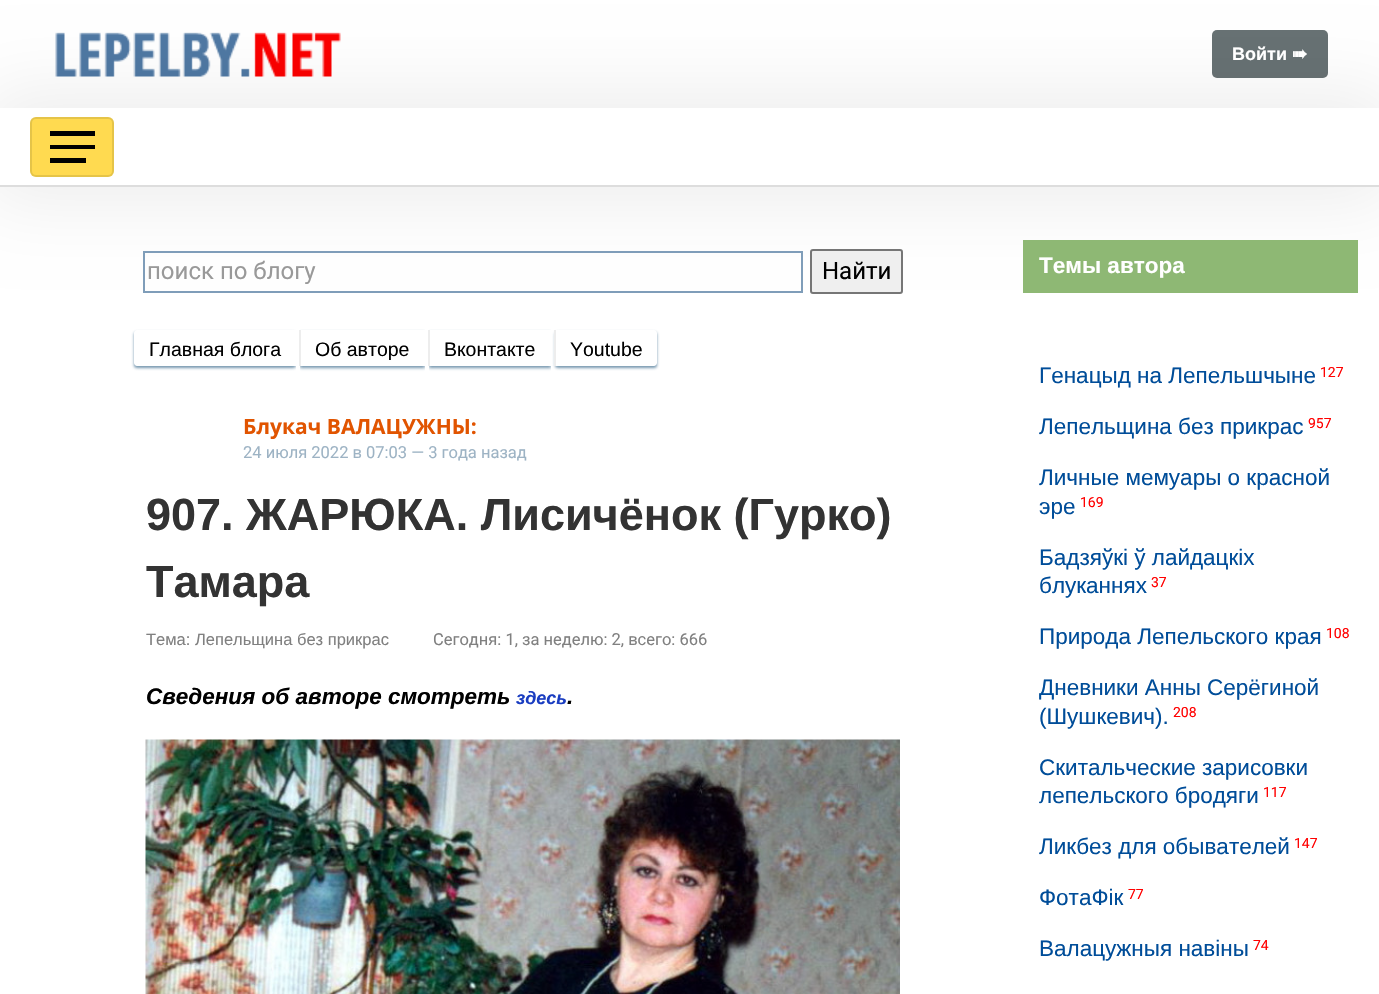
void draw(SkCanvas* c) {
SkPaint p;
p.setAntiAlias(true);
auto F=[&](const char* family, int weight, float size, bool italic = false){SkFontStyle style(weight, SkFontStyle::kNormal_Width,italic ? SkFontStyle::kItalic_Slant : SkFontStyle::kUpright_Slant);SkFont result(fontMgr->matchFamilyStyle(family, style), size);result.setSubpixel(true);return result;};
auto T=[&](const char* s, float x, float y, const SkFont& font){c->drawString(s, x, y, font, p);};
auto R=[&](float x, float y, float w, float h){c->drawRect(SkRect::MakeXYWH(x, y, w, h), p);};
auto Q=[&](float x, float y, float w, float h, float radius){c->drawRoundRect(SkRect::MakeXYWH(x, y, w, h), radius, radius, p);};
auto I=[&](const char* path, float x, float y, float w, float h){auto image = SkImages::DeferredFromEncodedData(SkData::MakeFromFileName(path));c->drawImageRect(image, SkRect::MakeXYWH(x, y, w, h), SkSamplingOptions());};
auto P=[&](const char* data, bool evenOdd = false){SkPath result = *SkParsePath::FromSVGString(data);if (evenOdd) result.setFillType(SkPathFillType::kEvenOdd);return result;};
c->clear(0xffffffff);
I("1.png",55,32,286,45);
p.setColor(0xff677173);
Q(1212,30,116,48,5);
c->save();
c->clipPath(P("M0 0h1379v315h-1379zm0 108h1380v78h-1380z",true),true);
p.setColor(0x12000000);
p.setMaskFilter(SkMaskFilter::MakeBlur(kNormal_SkBlurStyle, 37.5));
c->drawRect(SkRect::MakeXYWH(-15,93,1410,108),p);
p.setMaskFilter(nullptr);
c->restore();
p.setColor(0xffdddddd);
R(0,185,1379,2);
p.setColor(0xffffda50);
Q(30,117,84,60,6);
p.setStroke(true);
p.setStrokeWidth(2);
p.setColor(0x1a000000);
c->drawRoundRect(SkRect::MakeXYWH(31,118,82,58),5,5,p);
p.setStroke(false);
p.setColor(0xff000000);
R(50,131,45,5);
R(50,145,45,4);
R(50,158,36,5);
auto f1 = F("Liberation Sans",700,18);
p.setColor(0xffffffff);
T("Войти",1232,60,f1);
auto f2 = F("DejaVu Sans",700,18);
T("➠",1292,60,f2);
p.setStroke(true);
p.setColor(0xff7f9db9);
c->drawRect(SkRect::MakeXYWH(144,252,658,40),p);
auto f3 = F("Roboto",400,24);
p.setStroke(false);
p.setColor(0xff999999);
T("поиск по блогу",147,279,f3);
p.setColor(0xffefefef);
c->drawRoundRect(SkRect::MakeXYWH(811,250,91,43),2,2,p);
p.setStroke(true);
p.setColor(0xff767676);
c->drawRoundRect(SkRect::MakeXYWH(811,250,91,43),2,2,p);
p.setStroke(false);
p.setColor(0xff000000);
T("Найти",822,279,f3);
c->save();
c->clipRect(SkRect::MakeXYWH(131,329,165,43));
c->clipPath(P("M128 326h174v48h-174zm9 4h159v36h-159c-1.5 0-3-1.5-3-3v-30c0-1.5 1.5-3 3-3z",true),true);
p.setColor(0x99185078);
p.setMaskFilter(SkMaskFilter::MakeBlur(kNormal_SkBlurStyle, 1.5));
c->drawRoundRect(SkRect::MakeXYWH(134,332,162,36),3,3,p);
p.setMaskFilter(nullptr);
c->restore();
auto f4 = F("Liberation Sans",400,19.5);
p.setColor(0xff000000);
T("Главная блога",149,356,f4);
c->save();
c->clipRect(SkRect::MakeXYWH(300,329,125,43));
c->clipPath(P("M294 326h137v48h-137zm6 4h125v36h-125z",true),true);
p.setColor(0x99185078);
p.setMaskFilter(SkMaskFilter::MakeBlur(kNormal_SkBlurStyle, 1.5));
c->drawRect(SkRect::MakeXYWH(300,332,125,36),p);
p.setMaskFilter(nullptr);
c->restore();
p.setColor(0xffededed);
R(299,330,2,36);
p.setColor(0xff000000);
T("Об авторе",315,356,f4);
c->save();
c->clipRect(SkRect::MakeXYWH(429,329,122,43));
c->clipPath(P("M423 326h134v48h-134zm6 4h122v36h-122z",true),true);
p.setColor(0x99185078);
p.setMaskFilter(SkMaskFilter::MakeBlur(kNormal_SkBlurStyle, 1.5));
c->drawRect(SkRect::MakeXYWH(429,332,122,36),p);
p.setMaskFilter(nullptr);
c->restore();
p.setColor(0xffededed);
R(428,330,2,36);
p.setColor(0xff000000);
T("Вконтакте",444,356,f4);
c->save();
c->clipPath(P("M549 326h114v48h-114zm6 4h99c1.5 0 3 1.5 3 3v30c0 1.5-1.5 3-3 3h-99z",true),true);
p.setColor(0x99185078);
p.setMaskFilter(SkMaskFilter::MakeBlur(kNormal_SkBlurStyle, 1.5));
c->drawRoundRect(SkRect::MakeXYWH(555,332,102,36),3,3,p);
p.setMaskFilter(nullptr);
c->restore();
p.setColor(0xffededed);
R(554,330,2,36);
p.setColor(0xff000000);
T("Youtube",570,356,f4);
auto f5 = F("Open Sans",700,21);
p.setColor(0xffe15400);
T("Блукач ВАЛАЦУЖНЫ:",243,434,f5);
auto f6 = F("Roboto",400,16.5);
p.setColor(0xff9db3c4);
T("24 июля 2022 в 07:03 — 3 года назад",243,458,f6);
auto f7 = F("Liberation Sans",700,45);
p.setColor(0xff333333);
T("907. ЖАРЮКА. Лисичёнок (Гурко)",146,530,f7);
T("Тамара",146,597,f7);
auto f8 = F("Liberation Sans",400,16.5);
p.setColor(0xff808080);
T("Тема: Лепельщина без прикрас",146,645,f8);
T("Сегодня: 1, за неделю: 2, всего: 666",433,645,f6);
auto f9 = F("Liberation Sans",700,22.5,true);
p.setColor(0xff000000);
T("Сведения об авторе смотреть",146,704,f9);
auto f10 = F("Liberation Sans",700,18,true);
p.setColor(0xff1a3dc1);
T("здесь",516,704,f10);
p.setColor(0xff000000);
T(".",567,704,f9);
I("2.png",145,739,755,255);
p.setColor(0xff8eb874);
R(1023,240,335,53);
auto f11 = F("Liberation Sans",700,22.5);
p.setColor(0xffffffff);
T("Темы автора",1039,273,f11);
auto f12 = F("Liberation Sans",400,22.5);
p.setColor(0xff004d99);
T("Генацыд на Лепельшчыне",1039,383,f12);
auto f13 = F("Roboto",400,14);
p.setColor(0xffff0000);
T("127",1320,377,f13);
p.setColor(0xff004d99);
T("Лепельщина без прикрас",1039,434,f12);
p.setColor(0xffff0000);
T("957",1308,428,f13);
p.setColor(0xff004d99);
T("Личные мемуары о красной",1039,485,f12);
T("эре",1039,514,f12);
p.setColor(0xffff0000);
T("169",1080,507,f13);
p.setColor(0xff004d99);
T("Бадзяўкі ў лайдацкіх",1039,565,f12);
T("блуканнях",1039,593,f12);
p.setColor(0xffff0000);
T("37",1151,587,f13);
p.setColor(0xff004d99);
T("Природа Лепельского края",1039,644,f12);
p.setColor(0xffff0000);
T("108",1326,638,f13);
p.setColor(0xff004d99);
T("Дневники Анны Серёгиной",1039,695,f12);
T("(Шушкевич).",1039,724,f12);
p.setColor(0xffff0000);
T("208",1173,717,f13);
p.setColor(0xff004d99);
T("Скитальческие зарисовки",1039,775,f12);
T("лепельского бродяги",1039,803,f12);
p.setColor(0xffff0000);
T("117",1263,797,f13);
p.setColor(0xff004d99);
T("Ликбез для обывателей",1039,854,f12);
p.setColor(0xffff0000);
T("147",1294,848,f13);
p.setColor(0xff004d99);
T("ФотаФік",1039,905,f12);
p.setColor(0xffff0000);
T("77",1128,899,f13);
p.setColor(0xff004d99);
T("Валацужныя навіны",1039,956,f12);
p.setColor(0xffff0000);
T("74",1253,950,f13);
}
